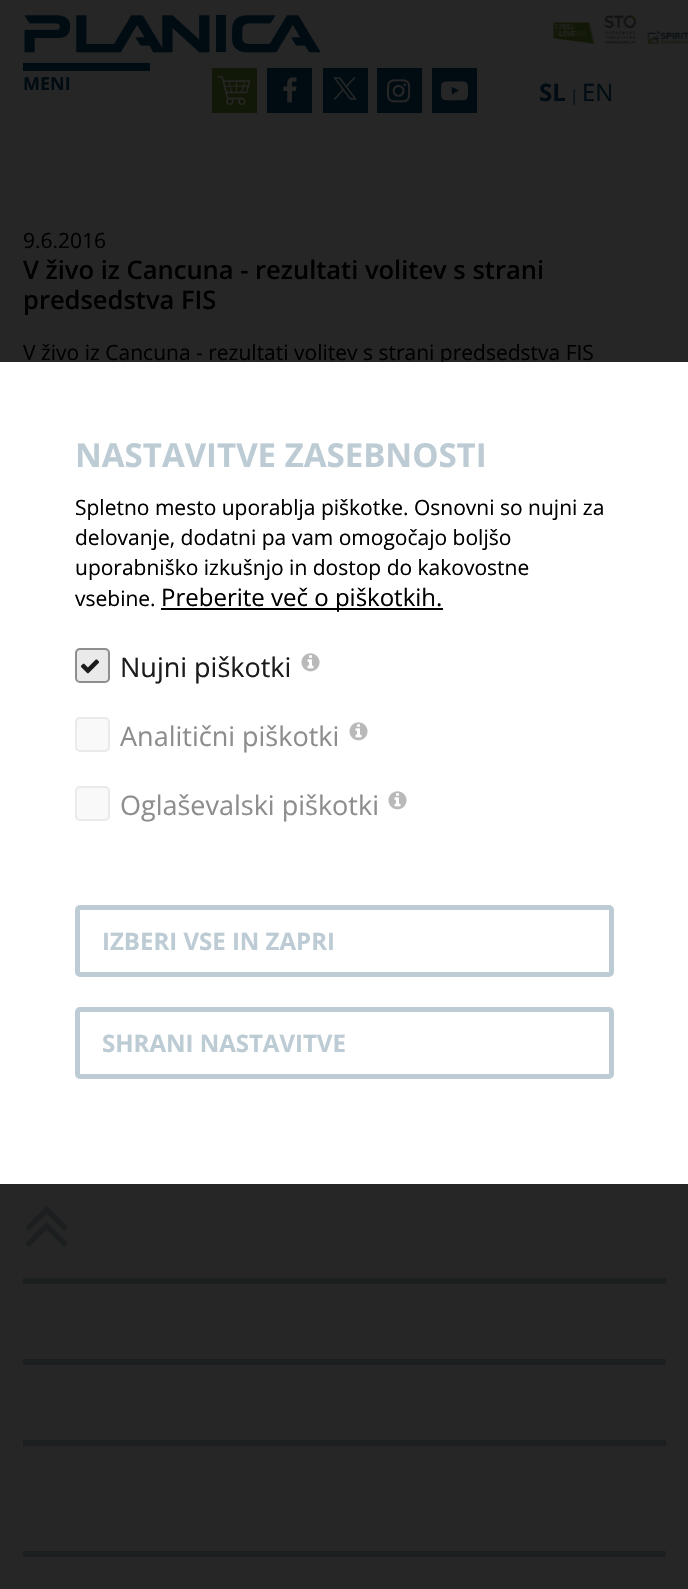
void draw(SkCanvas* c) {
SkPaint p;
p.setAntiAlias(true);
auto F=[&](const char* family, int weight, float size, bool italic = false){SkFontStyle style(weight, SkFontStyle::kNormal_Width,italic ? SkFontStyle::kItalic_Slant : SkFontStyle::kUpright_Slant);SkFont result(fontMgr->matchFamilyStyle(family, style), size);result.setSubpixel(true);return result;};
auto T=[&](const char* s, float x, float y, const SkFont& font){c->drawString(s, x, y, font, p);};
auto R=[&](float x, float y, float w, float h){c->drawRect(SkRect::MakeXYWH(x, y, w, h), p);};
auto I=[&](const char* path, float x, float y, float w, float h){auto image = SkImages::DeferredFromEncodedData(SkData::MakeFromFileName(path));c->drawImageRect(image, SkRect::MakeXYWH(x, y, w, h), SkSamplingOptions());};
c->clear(0xff262626);
I("1.png",24,15,297,38);
p.setColor(0xff000b12);
R(23,63,127,8);
auto f1 = F("Open Sans",700,18);
T("MENI",23,90,f1);
p.setColor(0xff121807);
R(212,68,45,45);
I("2.png",218,76,33,29);
p.setColor(0xff000b12);
R(267,68,45,45);
I("3.png",283,77,14,26);
R(323,68,45,45);
I("4.png",333,77,24,23);
R(377,68,45,45);
I("5.png",387,79,24,24);
R(432,68,45,45);
I("6.png",441,81,27,20);
I("7.png",553,22,42,22);
I("8.png",604,15,33,29);
I("9.png",647,31,41,13);
auto f2 = F("Open Sans",700,24);
T("SL",539,101,f2);
auto f3 = F("Open Sans",400,15);
T("|",570,101,f3);
auto f4 = F("Open Sans",400,24);
T("EN",582,101,f4);
auto f5 = F("Open Sans",400,21);
p.setColor(0xff000000);
T("9.6.2016",23,248,f5);
auto f6 = F("Open Sans",600,25.5);
T("V živo iz Cancuna - rezultati volitev s strani",23,279,f6);
T("predsedstva FIS",23,309,f6);
T("V živo iz Cancuna - rezultati volitev s strani predsedstva FIS",23,360,f5);
p.setColor(0xff1c1f20);
R(23,1278,643,6);
I("10.png",25,1206,43,41);
R(23,1359,643,6);
R(23,1440,643,6);
R(23,1551,643,6);
p.setColor(0xffffffff);
R(0,362,688,822);
auto f7 = F("Open Sans",700,33);
p.setColor(0xffbdccd4);
T("NASTAVITVE ZASEBNOSTI",75,467,f7);
p.setColor(0xff000000);
T("Spletno mesto uporablja piškotke. Osnovni so nujni za",75,515,f5);
T("delovanje, dodatni pa vam omogočajo boljšo",75,545,f5);
T("uporabniško izkušnjo in dostop do kakovostne",75,575,f5);
T("vsebine.",75,606,f5);
R(161,608,282,2);
T("Preberite več o piškotkih.",161,606,f4);
p.setColor(0xffeaeaea);
c->drawRoundRect(SkRect::MakeXYWH(76,649,33,33),4,4,p);
p.setStroke(true);
p.setStrokeWidth(2);
p.setColor(0xff8e8e8e);
c->drawRoundRect(SkRect::MakeXYWH(76,649,33,33),4,4,p);
auto f8 = F("Open Sans",400,27);
p.setStroke(false);
p.setColor(0xff1b1b1b);
T("Nujni piškotki",120,677,f8);
I("11.png",80,659,20,15);
I("12.png",301,653,19,19);
p.setColor(0xfff9f9f9);
c->drawRoundRect(SkRect::MakeXYWH(76,718,33,33),4,4,p);
p.setStroke(true);
p.setColor(0xffeaeaea);
c->drawRoundRect(SkRect::MakeXYWH(76,718,33,33),4,4,p);
p.setStroke(false);
p.setColor(0xff8d8d8d);
T("Analitični piškotki",120,746,f8);
I("12.png",349,722,19,19);
p.setColor(0xfff9f9f9);
c->drawRoundRect(SkRect::MakeXYWH(76,787,33,33),4,4,p);
p.setStroke(true);
p.setColor(0xffeaeaea);
c->drawRoundRect(SkRect::MakeXYWH(76,787,33,33),4,4,p);
p.setStroke(false);
p.setColor(0xff8d8d8d);
T("Oglaševalski piškotki",120,815,f8);
I("12.png",388,791,19,19);
p.setStroke(true);
p.setStrokeWidth(5);
p.setColor(0xffbdccd4);
c->drawRoundRect(SkRect::MakeXYWH(77.5,907.5,534,67),2.5,2.5,p);
p.setStroke(false);
T("IZBERI VSE IN ZAPRI",102,950,f2);
p.setStroke(true);
c->drawRoundRect(SkRect::MakeXYWH(77.5,1009.5,534,67),2.5,2.5,p);
p.setStroke(false);
T("SHRANI NASTAVITVE",102,1052,f2);
}
